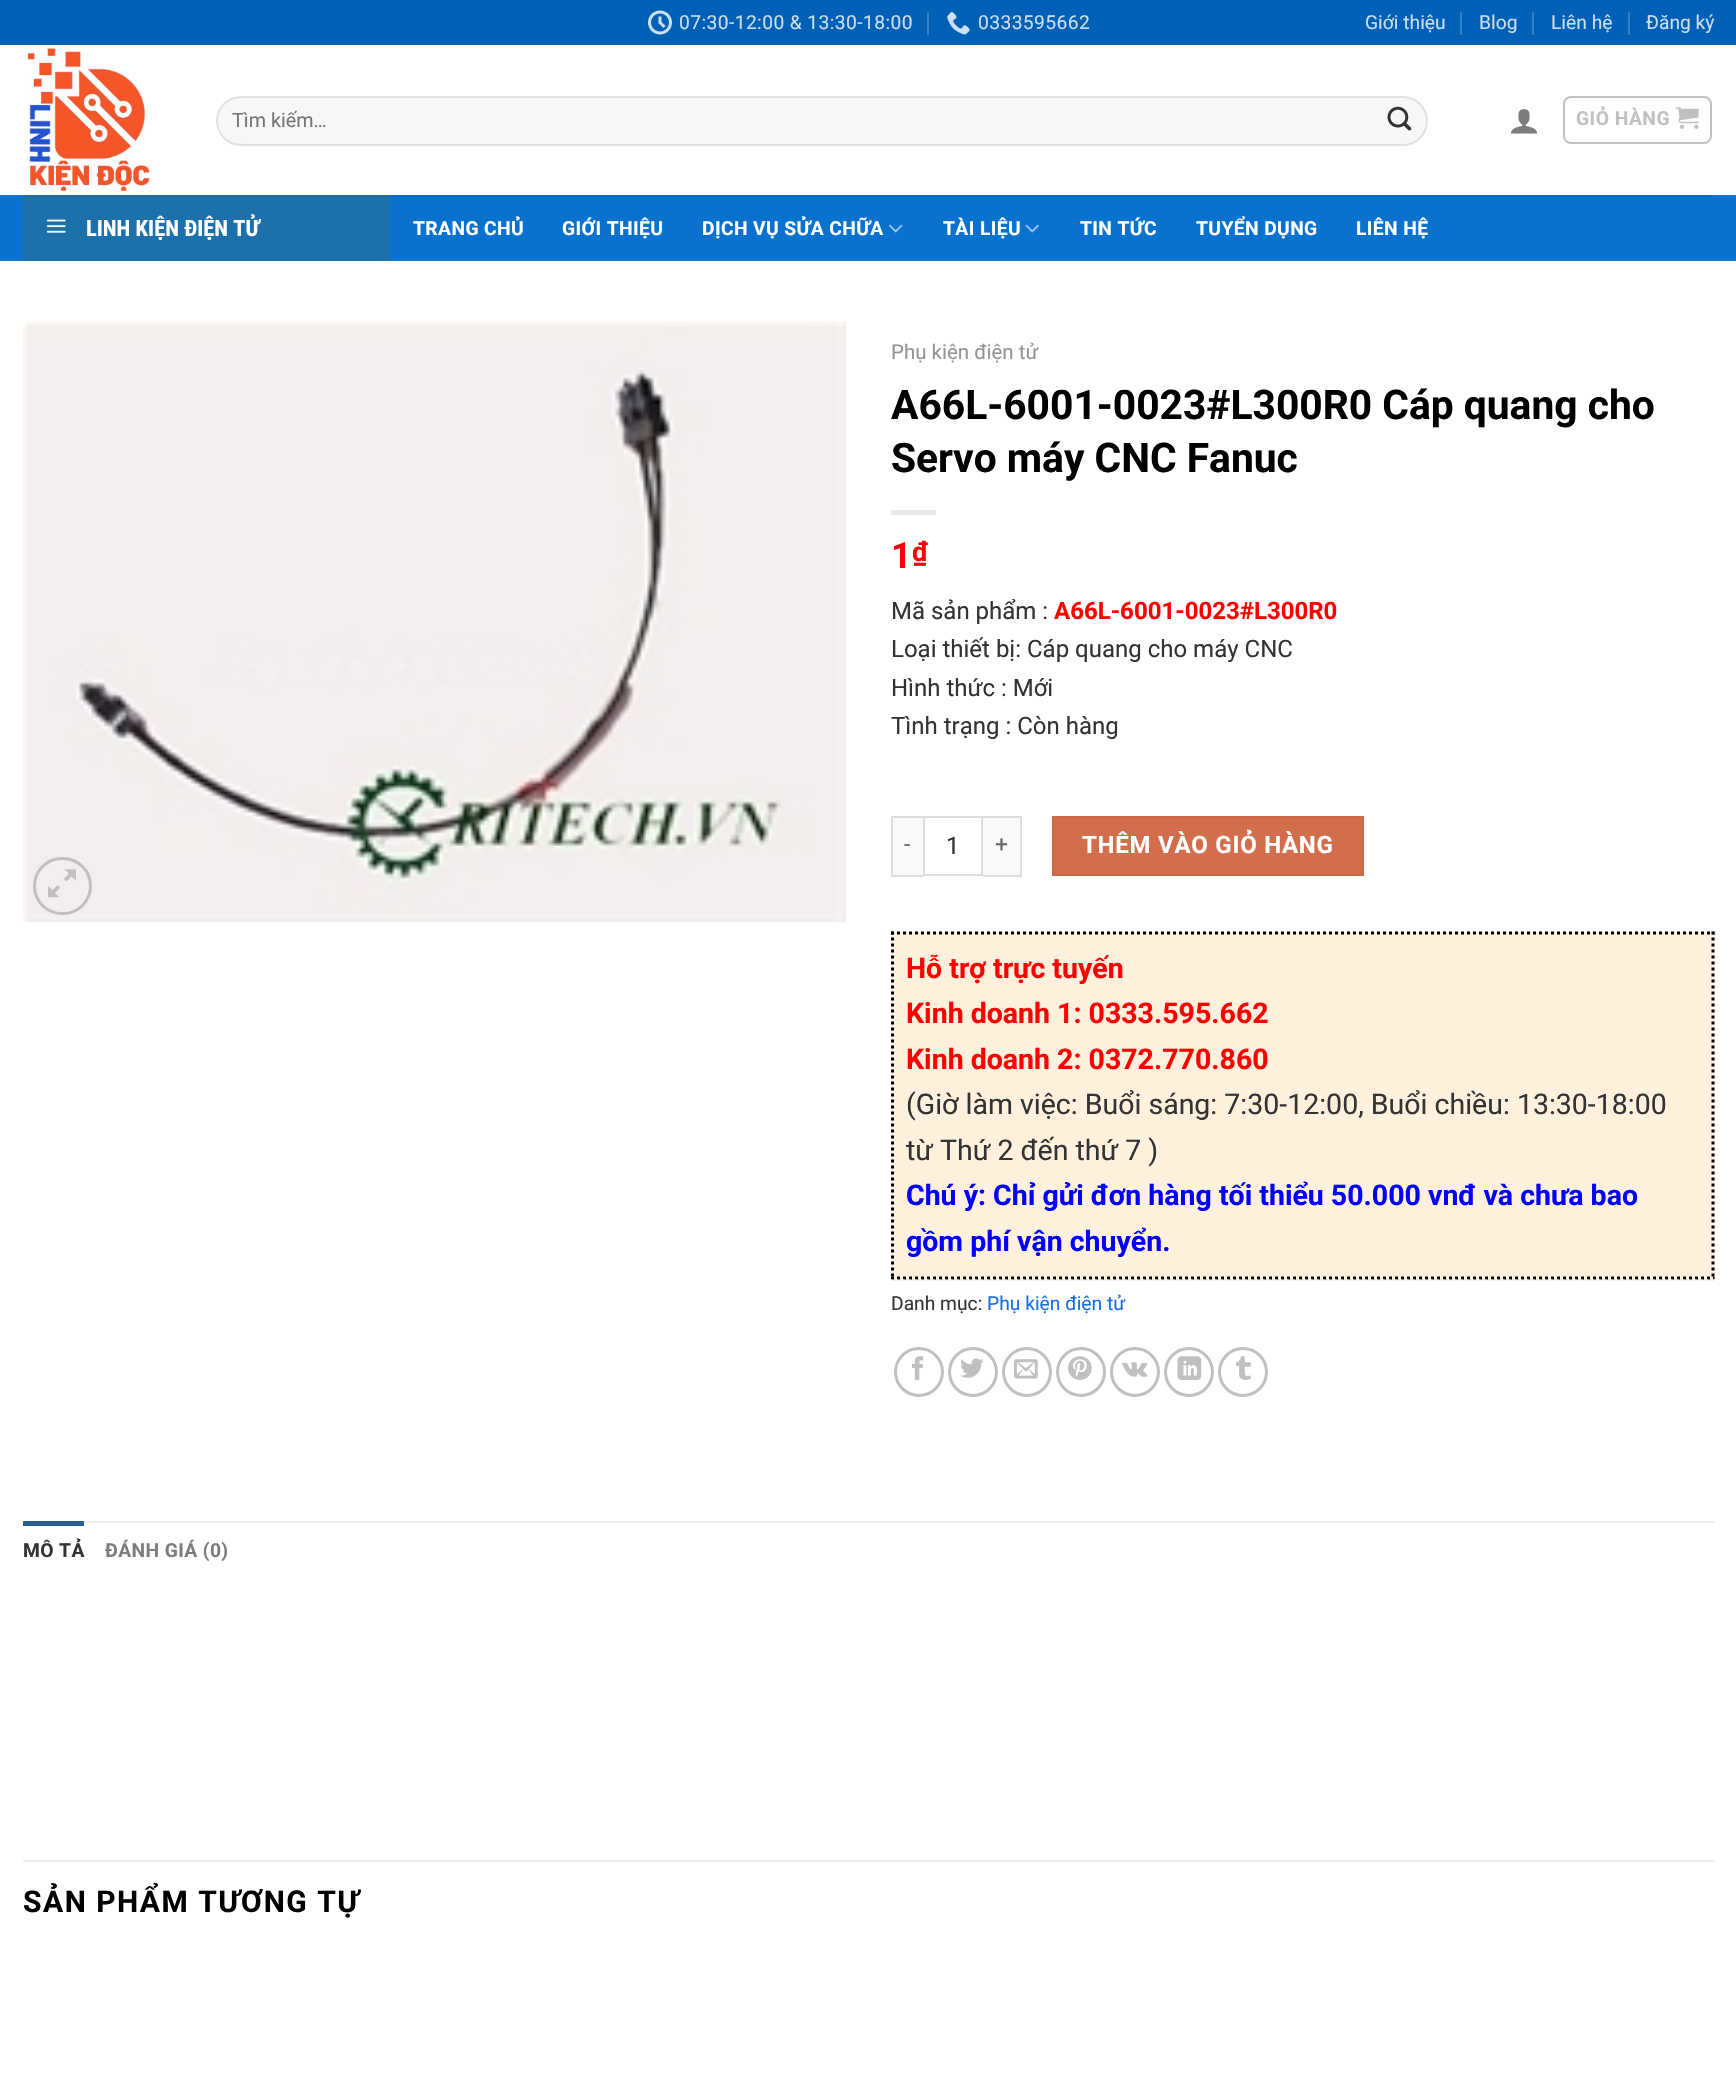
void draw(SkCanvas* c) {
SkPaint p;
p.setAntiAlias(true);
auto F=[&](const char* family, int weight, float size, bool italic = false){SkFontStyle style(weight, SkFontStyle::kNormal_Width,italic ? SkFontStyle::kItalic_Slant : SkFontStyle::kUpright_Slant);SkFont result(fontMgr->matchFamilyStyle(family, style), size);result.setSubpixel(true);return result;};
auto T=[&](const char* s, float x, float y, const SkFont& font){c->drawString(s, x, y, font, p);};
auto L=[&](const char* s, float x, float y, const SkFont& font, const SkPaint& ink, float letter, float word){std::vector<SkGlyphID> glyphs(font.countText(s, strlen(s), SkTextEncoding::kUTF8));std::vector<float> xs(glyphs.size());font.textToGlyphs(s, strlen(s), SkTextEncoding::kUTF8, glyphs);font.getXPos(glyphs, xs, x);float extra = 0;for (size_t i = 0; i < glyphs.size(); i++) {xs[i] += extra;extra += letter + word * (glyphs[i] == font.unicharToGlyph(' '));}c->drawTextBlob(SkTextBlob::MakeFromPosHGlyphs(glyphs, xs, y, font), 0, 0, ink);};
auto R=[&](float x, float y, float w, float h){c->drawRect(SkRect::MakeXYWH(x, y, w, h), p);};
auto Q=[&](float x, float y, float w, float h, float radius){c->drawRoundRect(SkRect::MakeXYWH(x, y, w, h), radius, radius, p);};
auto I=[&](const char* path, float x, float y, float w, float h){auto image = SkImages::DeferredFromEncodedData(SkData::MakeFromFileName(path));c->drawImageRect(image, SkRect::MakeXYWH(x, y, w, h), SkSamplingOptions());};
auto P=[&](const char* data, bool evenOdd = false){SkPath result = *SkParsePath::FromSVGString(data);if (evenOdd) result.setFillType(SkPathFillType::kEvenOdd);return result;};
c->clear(0xffffffff);
p.setColor(0xff0060b5);
R(0,0,1736,45);
I("1.png",648,10,24,25);
auto f1 = F("Roboto",400,19.25);
p.setColor(0xffccdff0);
L("07:30-12:00 & 13:30-18:00",679,29,f1,p,.4,0);
p.setColor(0xff3380c4);
R(927,12,2,23);
I("2.png",947,12,23,23);
p.setColor(0xffccdff0);
L("0333595662",978,29,f1,p,.4,0);
T("Giới thiệu",1365,29,f1);
p.setColor(0xff3380c4);
R(1460,12,2,23);
p.setColor(0xffccdff0);
T("Blog",1479,29,f1);
p.setColor(0xff3380c4);
R(1532,12,2,23);
p.setColor(0xffccdff0);
T("Liên hệ",1551,29,f1);
p.setColor(0xff3380c4);
R(1628,12,2,23);
p.setColor(0xffccdff0);
T("Đăng ký",1646,29,f1);
I("3.png",27,47,123,145);
p.setColor(0xfff7f7f7);
Q(216,96,1212,50,25);
p.setStroke(true);
p.setStrokeWidth(2);
p.setColor(0x17000000);
c->drawRoundRect(SkRect::MakeXYWH(217,97,1210,48),24,24,p);
auto f2 = F("Roboto",400,19.75);
p.setStroke(false);
p.setColor(0xff757575);
T("Tìm kiếm…",232,127,f2);
I("4.png",1387,106,25,25);
I("5.png",1510,109,28,25);
p.setStroke(true);
p.setColor(0xffc0c0c0);
c->drawRoundRect(SkRect::MakeXYWH(1564,97,147,46),7,7,p);
auto f3 = F("Roboto",700,19.25);
p.setStroke(false);
L("GIỎ HÀNG",1576,125,f3,p,.5,0);
I("6.png",1675,107,24,22);
p.setColor(0xff0971ce);
R(0,195,1736,66);
p.setColor(0xff0d6bbf);
R(390,195,1325,2);
p.setColor(0xff1d71ab);
R(23,197,367,64);
p.setColor(0xff1f6b9f);
R(23,195,367,2);
I("7.png",46,219,20,14);
auto f4 = F("Roboto Condensed",700,22.5);
p.setColor(0xffffffff);
T("LINH KIỆN ĐIỆN TỬ",86,236,f4);
L("TRANG CHỦ",413,235,f3,p,.4,0);
L("GIỚI THIỆU",562,235,f3,p,.4,0);
L("DỊCH VỤ SỬA CHỮA",702,235,f3,p,.4,0);
I("8.png",889,224,14,9);
L("TÀI LIỆU",943,235,f3,p,.4,0);
I("9.png",1025,224,14,9);
L("TIN TỨC",1080,235,f3,p,.4,0);
L("TUYỂN DỤNG",1196,235,f3,p,.4,0);
L("LIÊN HỆ",1356,235,f3,p,.4,0);
I("10.png",23,321,823,602);
p.setStroke(true);
p.setStrokeWidth(3);
p.setColor(0xffc0c0c0);
c->drawRoundRect(SkRect::MakeXYWH(34.5,858.5,56,55),27.5,27.5,p);
I("11.png",48,869,28,29);
auto f5 = F("Roboto",400,20.5);
p.setStroke(false);
p.setColor(0xff949494);
T("Phụ kiện điện tử",891,359,f5);
auto f6 = F("Roboto",700,40.75);
p.setColor(0xff000000);
T("A66L-6001-0023#L300R0 Cáp quang cho",891,419,f6);
T("Servo máy CNC Fanuc",891,472,f6);
p.setColor(0xffe6e6e6);
R(891,510,45,5);
auto f7 = F("Roboto",700,36);
p.setColor(0xffff0000);
T("1",891,568,f7);
auto f8 = F("Roboto",700,27);
T("₫",912,561,f8);
auto f9 = F("Roboto",400,24);
p.setColor(0xff333333);
T("Mã sản phẩm :",891,619,f9);
auto f10 = F("Roboto",700,24);
p.setColor(0xffff0000);
T("A66L-6001-0023#L300R0",1054,619,f10);
p.setColor(0xff333333);
T("Loại thiết bị: Cáp quang cho máy CNC",891,657,f9);
T("Hình thức : Mới",891,696,f9);
T("Tình trạng : Còn hàng",891,734,f9);
p.setColor(0xfff9f9f9);
R(893,818,30,57);
p.setColor(0xffdddddd);
R(891,816,32,2);
R(891,875,32,2);
R(891,816,2,60);
auto f11 = F("Roboto",400,23);
p.setColor(0xff666666);
L("-",904,852,f11,p,1,0);
p.setStroke(true);
p.setStrokeWidth(2);
p.setColor(0xffdddddd);
c->drawRect(SkRect::MakeXYWH(924,817,58,58),p);
p.setStroke(false);
p.setColor(0xff333333);
T("1",946,854,f9);
p.setColor(0xfff9f9f9);
R(983,818,37,57);
p.setColor(0xffdddddd);
R(983,816,39,2);
R(1020,816,2,60);
R(983,875,39,2);
p.setColor(0xff666666);
L("+",995,852,f11,p,1,0);
p.setColor(0xffd26e4b);
c->drawRect(SkRect::MakeXYWH(1053,817,310,58),p);
p.setStroke(true);
p.setColor(0xffc86947);
c->drawRect(SkRect::MakeXYWH(1053,817,310,58),p);
p.setStroke(false);
p.setColor(0xffffffff);
L("THÊM VÀO GIỎ HÀNG",1082,853,f10,p,.75,0);
p.setColor(0xfffff1dd);
R(891,932,824,348);
p.setStroke(true);
p.setStrokeWidth(3);
p.setColor(0xff000000);
p.setPathEffect(SkDashPathEffect::Make({{3,3}}, 0));
c->drawPath(P("M891 933h823.5"),p);
p.setPathEffect(nullptr);
p.setPathEffect(SkDashPathEffect::Make({{3,3}}, 0));
c->drawPath(P("M1713 931.5v348"),p);
p.setPathEffect(nullptr);
p.setPathEffect(SkDashPathEffect::Make({{3,3}}, 0));
c->drawPath(P("M891 1278h823.5"),p);
p.setPathEffect(nullptr);
p.setPathEffect(SkDashPathEffect::Make({{3,3}}, 0));
c->drawPath(P("M892.5 931.5v348"),p);
p.setPathEffect(nullptr);
auto f12 = F("Roboto",700,28.5);
p.setStroke(false);
p.setColor(0xffff0000);
T("Hỗ trợ trực tuyến",906,978,f12);
T("Kinh doanh 1: 0333.595.662",906,1023,f12);
T("Kinh doanh 2: 0372.770.860",906,1069,f12);
auto f13 = F("Roboto",400,28.5);
p.setColor(0xff333333);
T("(Giờ làm việc: Buổi sáng: 7:30-12:00, Buổi chiều: 13:30-18:00",906,1114,f13);
T("từ Thứ 2 đến thứ 7 )",906,1160,f13);
p.setColor(0xff0000ff);
T("Chú ý: Chỉ gửi đơn hàng tối thiểu 50.000 vnđ và chưa bao",906,1205,f12);
T("gồm phí vận chuyển.",906,1251,f12);
p.setStroke(true);
p.setStrokeWidth(1.5);
p.setColor(0xffdddddd);
p.setPathEffect(SkDashPathEffect::Make({{1.5f,1.5f}}, 0));
c->drawPath(P("M891 1280h823.5"),p);
p.setPathEffect(nullptr);
p.setStroke(false);
p.setColor(0xff333333);
T("Danh mục:",891,1310,f1);
p.setColor(0xff196ee5);
T("Phụ kiện điện tử",987,1310,f1);
p.setStroke(true);
p.setStrokeWidth(3);
p.setColor(0xffc0c0c0);
c->drawCircle(919,1372,23.5,p);
I("12.png",912,1356,11,24);
c->drawCircle(973,1372,23.5,p);
I("13.png",960,1358,24,20);
c->drawCircle(1027,1372,23.5,p);
I("14.png",1014,1359,24,20);
c->drawCircle(1081,1372,23.5,p);
I("15.png",1068,1356,24,24);
c->drawCircle(1135,1372,23.5,p);
I("16.png",1122,1362,26,15);
c->drawCircle(1189,1372,23.5,p);
I("17.png",1177,1356,25,24);
c->drawCircle(1243,1372,23.5,p);
I("18.png",1236,1356,15,24);
p.setStroke(false);
p.setColor(0xffececec);
R(84,1521,1631,2);
p.setColor(0xff2c5e8b);
R(23,1521,61,5);
p.setColor(0xff333333);
L("MÔ TẢ",23,1557,f3,p,.4,0);
p.setColor(0xff7d7d7d);
L("ĐÁNH GIÁ (0)",105,1557,f3,p,.4,0);
p.setColor(0xffececec);
R(23,1860,1692,2);
auto f14 = F("Roboto",700,30);
p.setColor(0xff000000);
L("SẢN PHẨM TƯƠNG TỰ",23,1912,f14,p,1.5,0);
}
